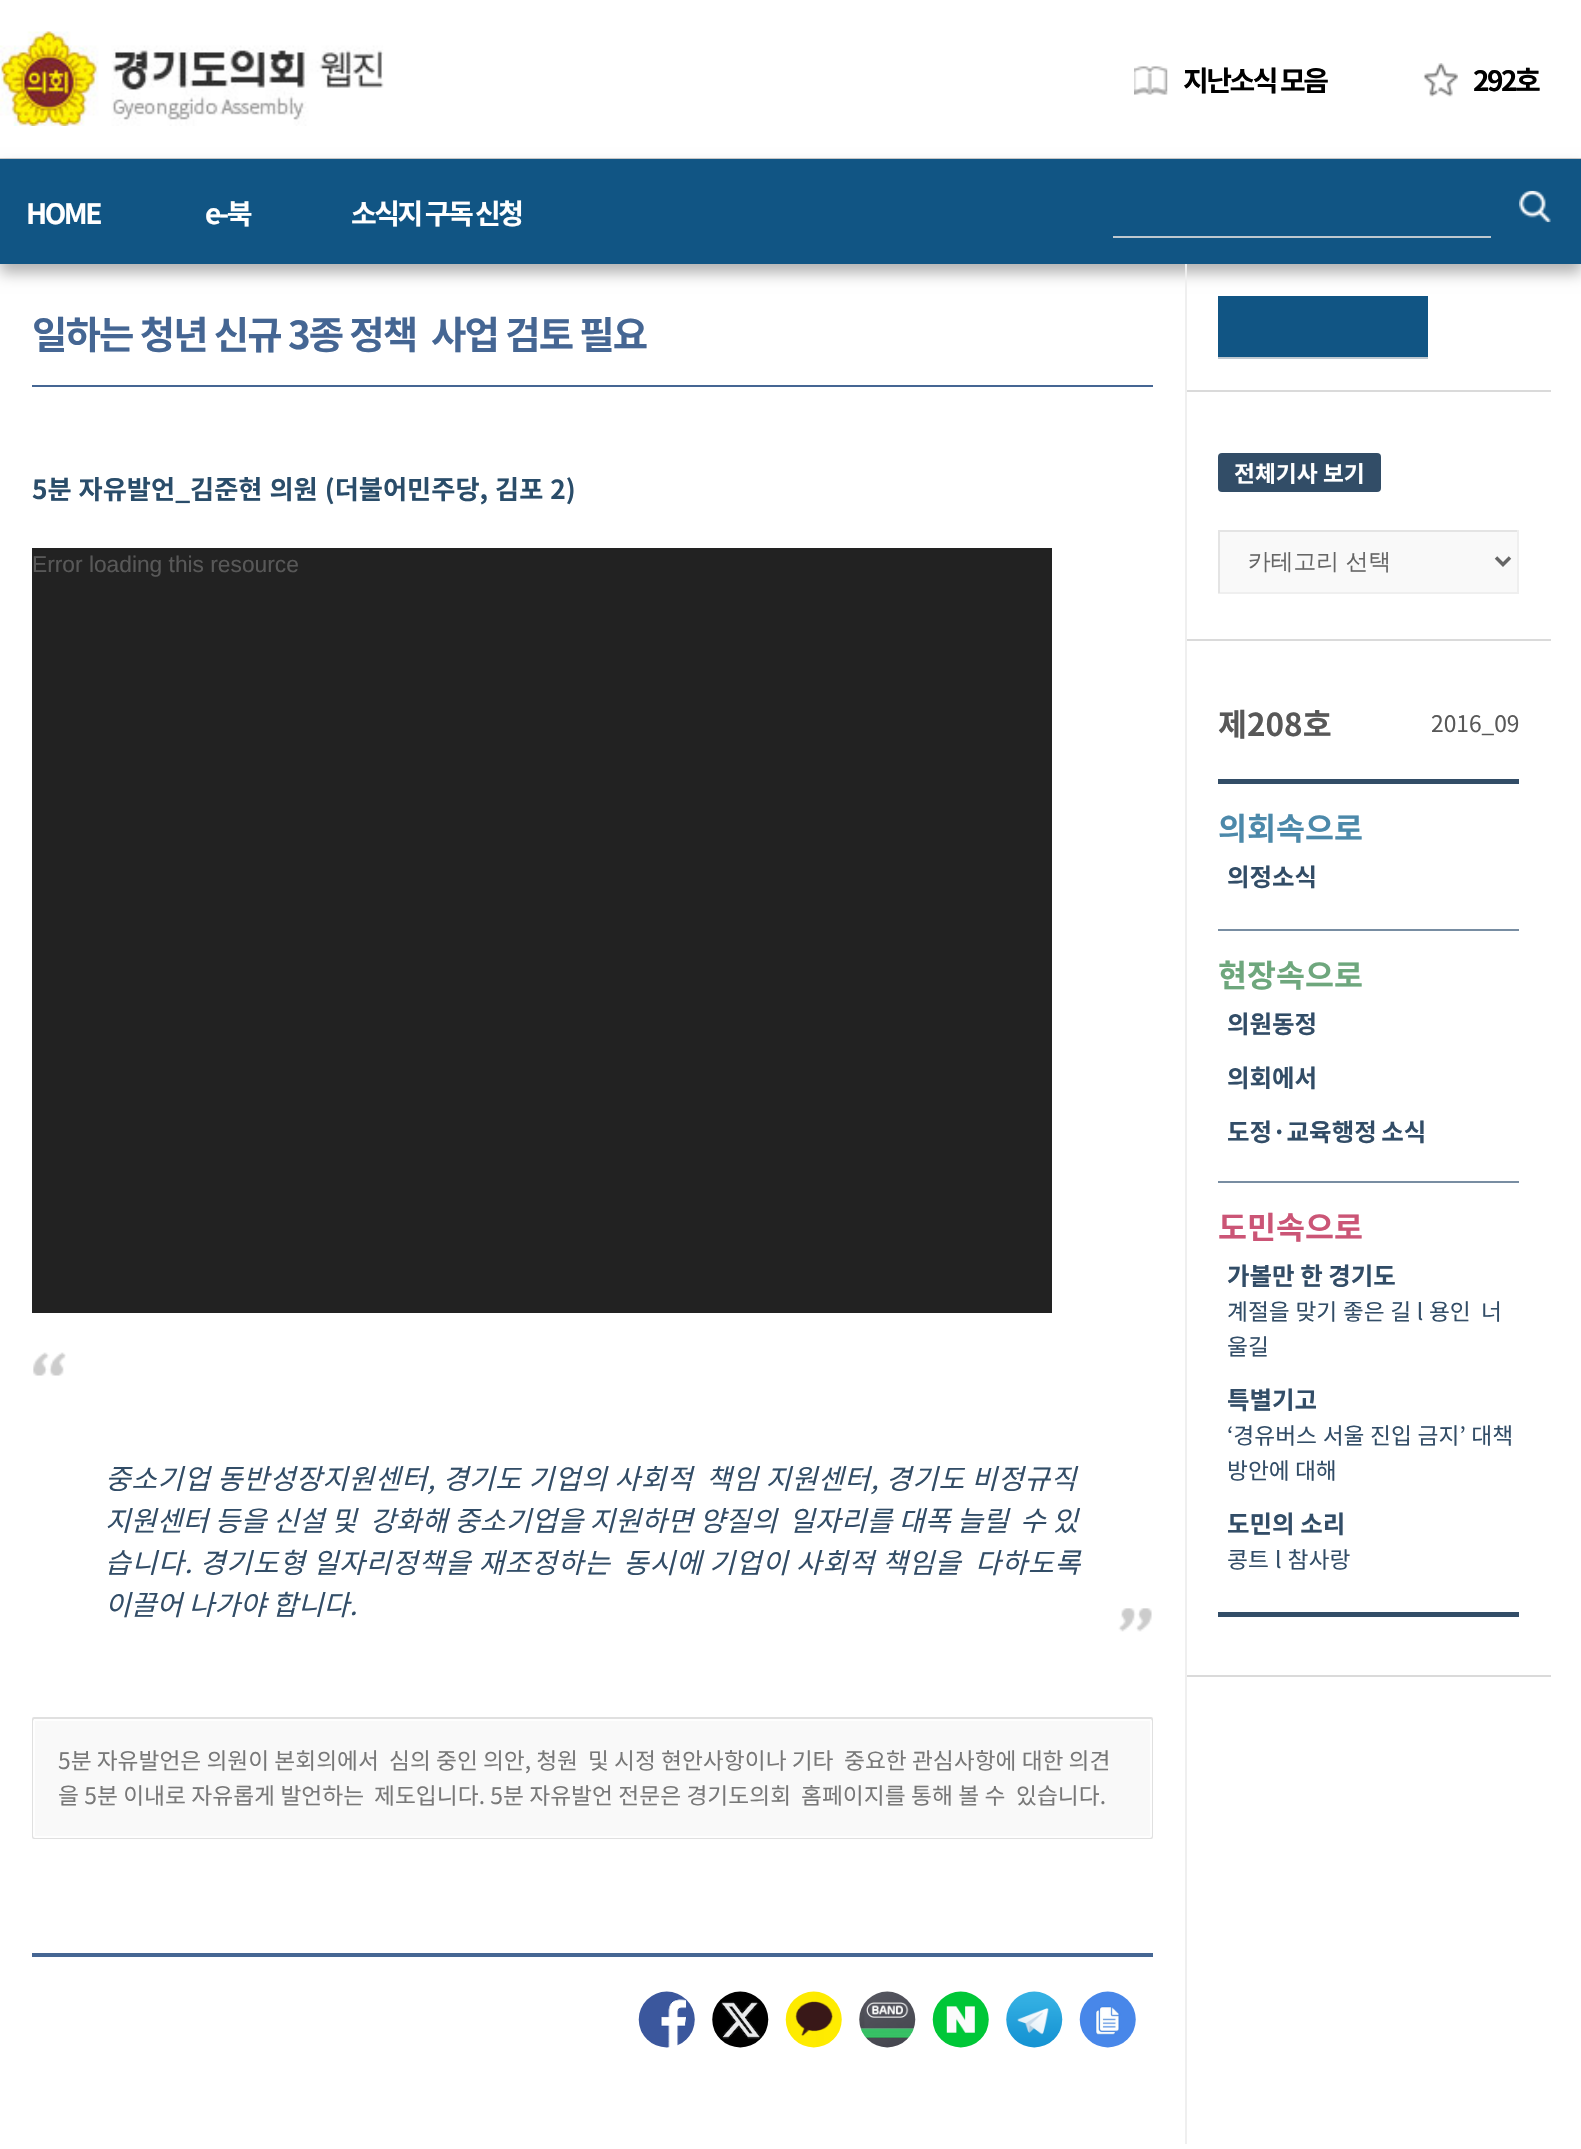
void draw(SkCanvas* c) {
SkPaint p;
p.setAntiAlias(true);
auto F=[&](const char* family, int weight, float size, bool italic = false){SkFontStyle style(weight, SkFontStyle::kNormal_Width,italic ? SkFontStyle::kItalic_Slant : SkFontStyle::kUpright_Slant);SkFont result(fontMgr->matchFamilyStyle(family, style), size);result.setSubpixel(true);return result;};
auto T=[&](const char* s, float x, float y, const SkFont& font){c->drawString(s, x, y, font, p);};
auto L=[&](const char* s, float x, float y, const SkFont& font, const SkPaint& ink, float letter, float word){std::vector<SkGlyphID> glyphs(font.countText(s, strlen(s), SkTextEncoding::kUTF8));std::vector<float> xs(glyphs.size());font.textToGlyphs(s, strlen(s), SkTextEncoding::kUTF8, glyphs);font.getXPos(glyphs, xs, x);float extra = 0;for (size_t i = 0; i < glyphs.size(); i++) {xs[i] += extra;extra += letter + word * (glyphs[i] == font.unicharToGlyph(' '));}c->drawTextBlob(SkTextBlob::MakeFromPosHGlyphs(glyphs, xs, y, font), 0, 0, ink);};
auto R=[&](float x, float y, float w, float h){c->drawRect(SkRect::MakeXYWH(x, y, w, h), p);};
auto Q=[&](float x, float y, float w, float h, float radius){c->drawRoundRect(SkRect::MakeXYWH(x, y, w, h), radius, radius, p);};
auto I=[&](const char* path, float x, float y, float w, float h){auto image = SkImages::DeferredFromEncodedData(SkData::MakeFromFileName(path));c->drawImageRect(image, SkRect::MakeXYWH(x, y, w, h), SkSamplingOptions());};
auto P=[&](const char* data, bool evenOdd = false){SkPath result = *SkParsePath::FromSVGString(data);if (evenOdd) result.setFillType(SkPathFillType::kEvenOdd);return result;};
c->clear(0xffffffff);
p.setColor(0xffcacaca);
R(0,158,1581,1);
I("1.png",0,31,384,95);
p.setColor(0x4d000000);
p.setMaskFilter(SkMaskFilter::MakeBlur(kNormal_SkBlurStyle, 7));
c->drawRect(SkRect::MakeXYWH(0,168,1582,105),p);
p.setMaskFilter(nullptr);
p.setColor(0xff115584);
R(0,159,1581,105);
I("2.png",1519,190,32,33);
p.setColor(0xffbfc8cf);
R(1113,236,378,2);
I("3.png",1134,66,34,29);
auto f1 = F("Noto Sans KR",700,28);
p.setColor(0xff000000);
L("지난소식 모음",1183,91,f1,p,-2.5,0);
I("4.png",1423,63,35,34);
L("292호",1473,91,f1,p,-2.5,0);
p.setColor(0xffffffff);
L("HOME",26,224,f1,p,-2.5,0);
L("e-북",205,224,f1,p,-2.5,0);
L("소식지 구독 신청",351,224,f1,p,-2.5,0);
p.setColor(0xff456693);
R(32,385,1121,2);
auto f2 = F("Noto Sans KR",700,38.5);
L("일하는 청년 신규 3종 정책",32,349,f2,p,-1.9,.25);
L("사업 검토 필요",431,349,f2,p,-1.9,.25);
auto f3 = F("Noto Sans KR",700,26.25);
p.setColor(0xff2a4d6a);
L("5분 자유발언_김준현 의원 (더불어민주당, 김포 2)",32,499,f3,p,0,1);
p.setColor(0xff222222);
R(32,548,1020,765);
auto f4 = F("Liberation Sans",400,22.75);
p.setColor(0xff585858);
T("Error loading this resource",32,572,f4);
I("5.png",33,1352,33,24);
auto f5 = F("Noto Sans KR",400,28,true);
p.setColor(0xff324d67);
L("중소기업 동반성장지원센터, 경기도 기업의 사회적",105,1489,f5,p,.55,0);
L("책임 지원센터, 경기도 비정규직",706,1489,f5,p,.55,0);
L("지원센터 등을 신설 및",105,1531,f5,p,.1,0);
L("강화해 중소기업을 지원하면 양질의",370,1531,f5,p,.1,0);
L("일자리를 대폭 늘릴",789,1531,f5,p,.1,0);
L("수 있",1020,1531,f5,p,.1,0);
L("습니다. 경기도형 일자리정책을 재조정하는",105,1573,f5,p,.7,0);
L("동시에 기업이 사회적 책임을",623,1573,f5,p,.7,0);
L("다하도록",975,1573,f5,p,.7,0);
T("이끌어 나가야 합니다.",105,1615,f5);
I("6.png",1118,1608,34,24);
p.setStroke(true);
p.setStrokeWidth(2);
p.setColor(0xffe0e0e0);
c->drawRoundRect(SkRect::MakeXYWH(33,1718,1119,120),1,1,p);
p.setStroke(false);
p.setColor(0xfff9f9f9);
c->drawRoundRect(SkRect::MakeXYWH(34,1720,1117,117),1,1,p);
p.setStroke(true);
p.setColor(0xfffefefe);
c->drawRoundRect(SkRect::MakeXYWH(34,1720,1117,117),1,1,p);
auto f6 = F("Noto Sans KR",400,22.75);
p.setStroke(false);
p.setColor(0xff787878);
T("5분 자유발언은 의원이 본회의에서",58,1769,f6);
T("심의 중인 의안, 청원",389,1769,f6);
T("및 시정 현안사항이나 기타",588,1769,f6);
T("중요한 관심사항에 대한 의견",844,1769,f6);
L("을 5분 이내로 자유롭게 발언하는",58,1804,f6,p,0,.25);
L("제도입니다. 5분 자유발언 전문은 경기도의회",374,1804,f6,p,0,.25);
L("홈페이지를 통해 볼 수",801,1804,f6,p,0,.25);
L("있습니다.",1016,1804,f6,p,0,.25);
p.setColor(0xff456693);
R(32,1953,1121,4);
I("7.png",638,1991,57,57);
I("8.png",712,1991,57,57);
I("9.png",785,1991,57,57);
I("10.png",859,1991,57,57);
I("11.png",932,1991,57,57);
I("12.png",1006,1991,57,57);
I("13.png",1079,1991,57,57);
p.setColor(0xffefefef);
R(1185,264,2,1880);
p.setColor(0xffdadada);
R(1187,390,364,2);
p.setColor(0xff115584);
R(1218,296,210,61);
p.setColor(0xffbfc8cf);
R(1218,357,210,2);
p.setColor(0xffdadada);
R(1187,639,364,2);
p.setColor(0xff324d67);
Q(1218,453,163,39,4);
auto f7 = F("Noto Sans KR",700,22.75);
p.setColor(0xffffffff);
T("전체기사 보기",1234,482,f7);
p.setColor(0xfff9f9f9);
R(1220,532,297,60);
p.setColor(0xffe4e4e4);
R(1218,530,301,2);
p.setColor(0xffefefef);
R(1517,530,2,63);
R(1218,592,301,2);
p.setColor(0xffe4e4e4);
R(1218,530,2,63);
p.setStroke(true);
p.setStrokeWidth(3.5);
p.setColor(0xff666666);
c->drawPath(P("M1496 557.5l7 7l7-7"),p);
auto f8 = F("WenQuanYi Zen Hei",500,22.75);
p.setStroke(false);
T("카테고리 선택",1248,569,f8);
p.setColor(0xffdadada);
R(1187,1675,364,2);
auto f9 = F("Noto Sans KR",700,31.5);
p.setColor(0xff585858);
T("제208호",1218,736,f9);
T("2016_09",1431,732,f6);
p.setColor(0xff324d67);
R(1218,779,301,5);
p.setColor(0xff4c89aa);
T("의회속으로",1218,840,f9);
auto f10 = F("Noto Sans KR",700,24.5);
p.setColor(0xff324d67);
T("의정소식",1227,886,f10);
p.setColor(0xff788da2);
R(1218,929,301,2);
p.setColor(0xff6ea77d);
T("현장속으로",1218,987,f9);
p.setColor(0xff324d67);
T("의원동정",1227,1033,f10);
T("의회에서",1227,1087,f10);
L("도정·교육행정 소식",1227,1141,f10,p,0,-1);
p.setColor(0xff788da2);
R(1218,1181,301,2);
p.setColor(0xffcb5576);
T("도민속으로",1218,1239,f9);
p.setColor(0xff324d67);
T("가볼만 한 경기도",1227,1285,f10);
L("계절을 맞기 좋은 길 l 용인",1227,1320,f6,p,0,.5);
L("너",1481,1320,f6,p,0,.5);
T("울길",1227,1355,f6);
T("특별기고",1227,1409,f10);
L("‘경유버스 서울 진입 금지’ 대책",1227,1444,f6,p,0,.5);
T("방안에 대해",1227,1479,f6);
T("도민의 소리",1227,1533,f10);
L("콩트 l 참사랑",1227,1568,f6,p,0,1);
R(1218,1612,301,5);
}
